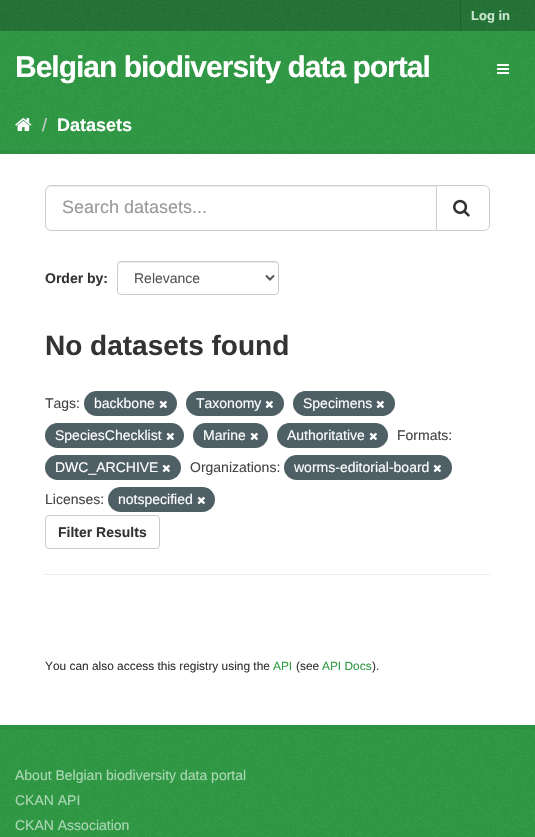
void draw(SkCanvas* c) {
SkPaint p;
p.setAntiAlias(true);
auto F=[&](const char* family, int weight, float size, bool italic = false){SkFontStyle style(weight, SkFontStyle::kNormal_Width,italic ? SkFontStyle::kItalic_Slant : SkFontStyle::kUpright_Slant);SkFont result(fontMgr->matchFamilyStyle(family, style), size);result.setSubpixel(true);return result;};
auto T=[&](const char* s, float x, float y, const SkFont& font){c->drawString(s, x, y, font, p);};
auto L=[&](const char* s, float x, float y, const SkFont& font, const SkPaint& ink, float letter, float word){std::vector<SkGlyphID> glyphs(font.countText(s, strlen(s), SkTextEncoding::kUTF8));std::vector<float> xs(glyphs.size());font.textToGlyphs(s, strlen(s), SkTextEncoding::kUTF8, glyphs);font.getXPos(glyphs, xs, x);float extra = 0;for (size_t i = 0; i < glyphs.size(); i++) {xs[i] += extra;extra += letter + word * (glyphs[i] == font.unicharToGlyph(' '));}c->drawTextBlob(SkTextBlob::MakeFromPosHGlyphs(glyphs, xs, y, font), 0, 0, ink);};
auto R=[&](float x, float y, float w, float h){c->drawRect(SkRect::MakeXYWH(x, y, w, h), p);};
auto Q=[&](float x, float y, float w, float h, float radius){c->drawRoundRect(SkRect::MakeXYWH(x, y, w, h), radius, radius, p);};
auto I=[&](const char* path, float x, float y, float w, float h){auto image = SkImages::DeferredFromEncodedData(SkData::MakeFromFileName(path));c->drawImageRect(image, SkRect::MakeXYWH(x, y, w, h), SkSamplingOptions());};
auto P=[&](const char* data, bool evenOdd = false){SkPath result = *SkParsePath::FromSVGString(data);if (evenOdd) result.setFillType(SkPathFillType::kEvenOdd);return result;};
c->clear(0xff2f9b45);
I("1.png",0,108,535,637);
p.setColor(0xff237434);
R(0,0,535,31);
I("2.png",0,0,535,31);
p.setColor(0xff1d602b);
R(460,0,1,31);
auto f1 = F("Liberation Sans",700,13);
p.setColor(0xffcbe6d1);
T("Log in",471,20,f1);
I("3.png",0,31,535,77);
auto f2 = F("Liberation Sans",700,30);
p.setColor(0xffffffff);
L("Belgian biodiversity data portal",15,77,f2,p,-1,0);
I("4.png",497,64,12,10);
I("5.png",15,118,17,13);
auto f3 = F("Liberation Sans",400,18);
p.setColor(0xffcccccc);
T("/",42,131,f3);
auto f4 = F("Liberation Sans",700,18);
p.setColor(0xffffffff);
T("Datasets",57,131,f4);
p.setStroke(true);
p.setStrokeWidth(4);
p.setColor(0x0d000000);
c->drawRect(SkRect::MakeXYWH(-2,152,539,575),p);
p.setStroke(false);
p.setColor(0xffffffff);
R(0,154,535,571);
p.setStroke(true);
p.setStrokeWidth(1);
p.setColor(0xffdddddd);
p.setPathEffect(SkDashPathEffect::Make({{1,1}}, 0));
c->drawPath(P("M45 574.5h445"),p);
p.setPathEffect(nullptr);
p.setStroke(false);
p.setColor(0xffececec);
c->drawPath(P("M51 187h385v-1h-385c-3 0-5 3-5 6c0-3 2-5 5-5z"),p);
p.setStroke(true);
p.setColor(0xffcccccc);
c->drawPath(P("M51 185.5h385.5v45h-385.5c-3 0-5.5-2.5-5.5-5.5v-34c0-3 2.5-5.5 5.5-5.5z"),p);
p.setStroke(false);
p.setColor(0xff999999);
T("Search datasets...",62,213,f3);
p.setColor(0xffffffff);
c->drawPath(P("M436.5 185.5h47.5c3 0 5.5 2.5 5.5 5.5v34c0 3-2.5 5.5-5.5 5.5h-47.5z"),p);
p.setStroke(true);
p.setColor(0xffcccccc);
c->drawPath(P("M436.5 185.5h47.5c3 0 5.5 2.5 5.5 5.5v34c0 3-2.5 5.5-5.5 5.5h-47.5z"),p);
I("6.png",453,199,17,18);
auto f5 = F("Liberation Sans",700,14);
p.setStroke(false);
p.setColor(0xff333333);
T("Order by:",45,283,f5);
p.setColor(0xffececec);
c->drawPath(P("M121 263h154c2 0 3 1 3 3c0-2-1-4-3-4h-155c-2 0-2 2-2 4c0-2 1-3 3-3z"),p);
p.setStroke(true);
p.setColor(0xffcccccc);
c->drawRoundRect(SkRect::MakeXYWH(117.5,261.5,161,33),3.5,3.5,p);
p.setStrokeWidth(2);
p.setColor(0xff555555);
c->drawPath(P("M266 275.5l4 4l4-4"),p);
auto f6 = F("Liberation Sans",400,14);
p.setStroke(false);
T("Relevance",134,283,f6);
auto f7 = F("Liberation Sans",700,28);
p.setColor(0xff333333);
T("No datasets found",45,355,f7);
p.setColor(0xff444444);
T("Tags:",45,408,f6);
p.setColor(0xff4e5f65);
Q(84,391,93,25,12.5);
p.setColor(0xffffffff);
T("backbone",94,408,f6);
I("7.png",159,400,8,9);
p.setColor(0xff4e5f65);
Q(186,391,98,25,12.5);
p.setColor(0xffffffff);
T("Taxonomy",196,408,f6);
I("7.png",265,400,8,9);
p.setColor(0xff4e5f65);
Q(293,391,102,25,12.5);
p.setColor(0xffffffff);
T("Specimens",303,408,f6);
I("7.png",376,400,8,9);
p.setColor(0xff4e5f65);
Q(45,423,139,25,12.5);
p.setColor(0xffffffff);
T("SpeciesChecklist",55,440,f6);
I("7.png",166,432,8,9);
p.setColor(0xff4e5f65);
Q(193,423,75,25,12.5);
p.setColor(0xffffffff);
T("Marine",203,440,f6);
I("7.png",250,432,8,9);
p.setColor(0xff4e5f65);
Q(277,423,111,25,12.5);
p.setColor(0xffffffff);
T("Authoritative",287,440,f6);
I("7.png",369,432,8,9);
p.setColor(0xff444444);
T("Formats:",397,440,f6);
p.setColor(0xff4e5f65);
Q(45,455,136,25,12.5);
p.setColor(0xffffffff);
T("DWC_ARCHIVE",55,472,f6);
I("7.png",162,464,8,9);
p.setColor(0xff444444);
T("Organizations:",190,472,f6);
p.setColor(0xff4e5f65);
Q(284,455,168,25,12.5);
p.setColor(0xffffffff);
T("worms-editorial-board",294,472,f6);
I("7.png",433,464,8,9);
p.setColor(0xff444444);
T("Licenses:",45,504,f6);
p.setColor(0xff4e5f65);
Q(108,487,107,25,12.5);
p.setColor(0xffffffff);
T("notspecified",118,504,f6);
I("7.png",197,496,8,9);
p.setStroke(true);
p.setStrokeWidth(1);
p.setColor(0xffcccccc);
c->drawRoundRect(SkRect::MakeXYWH(45.5,515.5,114,33),3.5,3.5,p);
p.setStroke(false);
p.setColor(0xff333333);
T("Filter Results",58,537,f5);
auto f8 = F("Liberation Sans",400,11.9);
T("You can also access this registry using the",45,670,f8);
p.setColor(0xff2f9b45);
T("API",273,670,f8);
p.setColor(0xff333333);
T("(see",296,670,f8);
p.setColor(0xff2f9b45);
T("API Docs",322,670,f8);
p.setColor(0xff333333);
T(").",372,670,f8);
I("8.png",0,745,535,92);
p.setColor(0xffacd7b5);
T("About Belgian biodiversity data portal",15,780,f6);
T("CKAN API",15,805,f6);
T("CKAN Association",15,830,f6);
}
